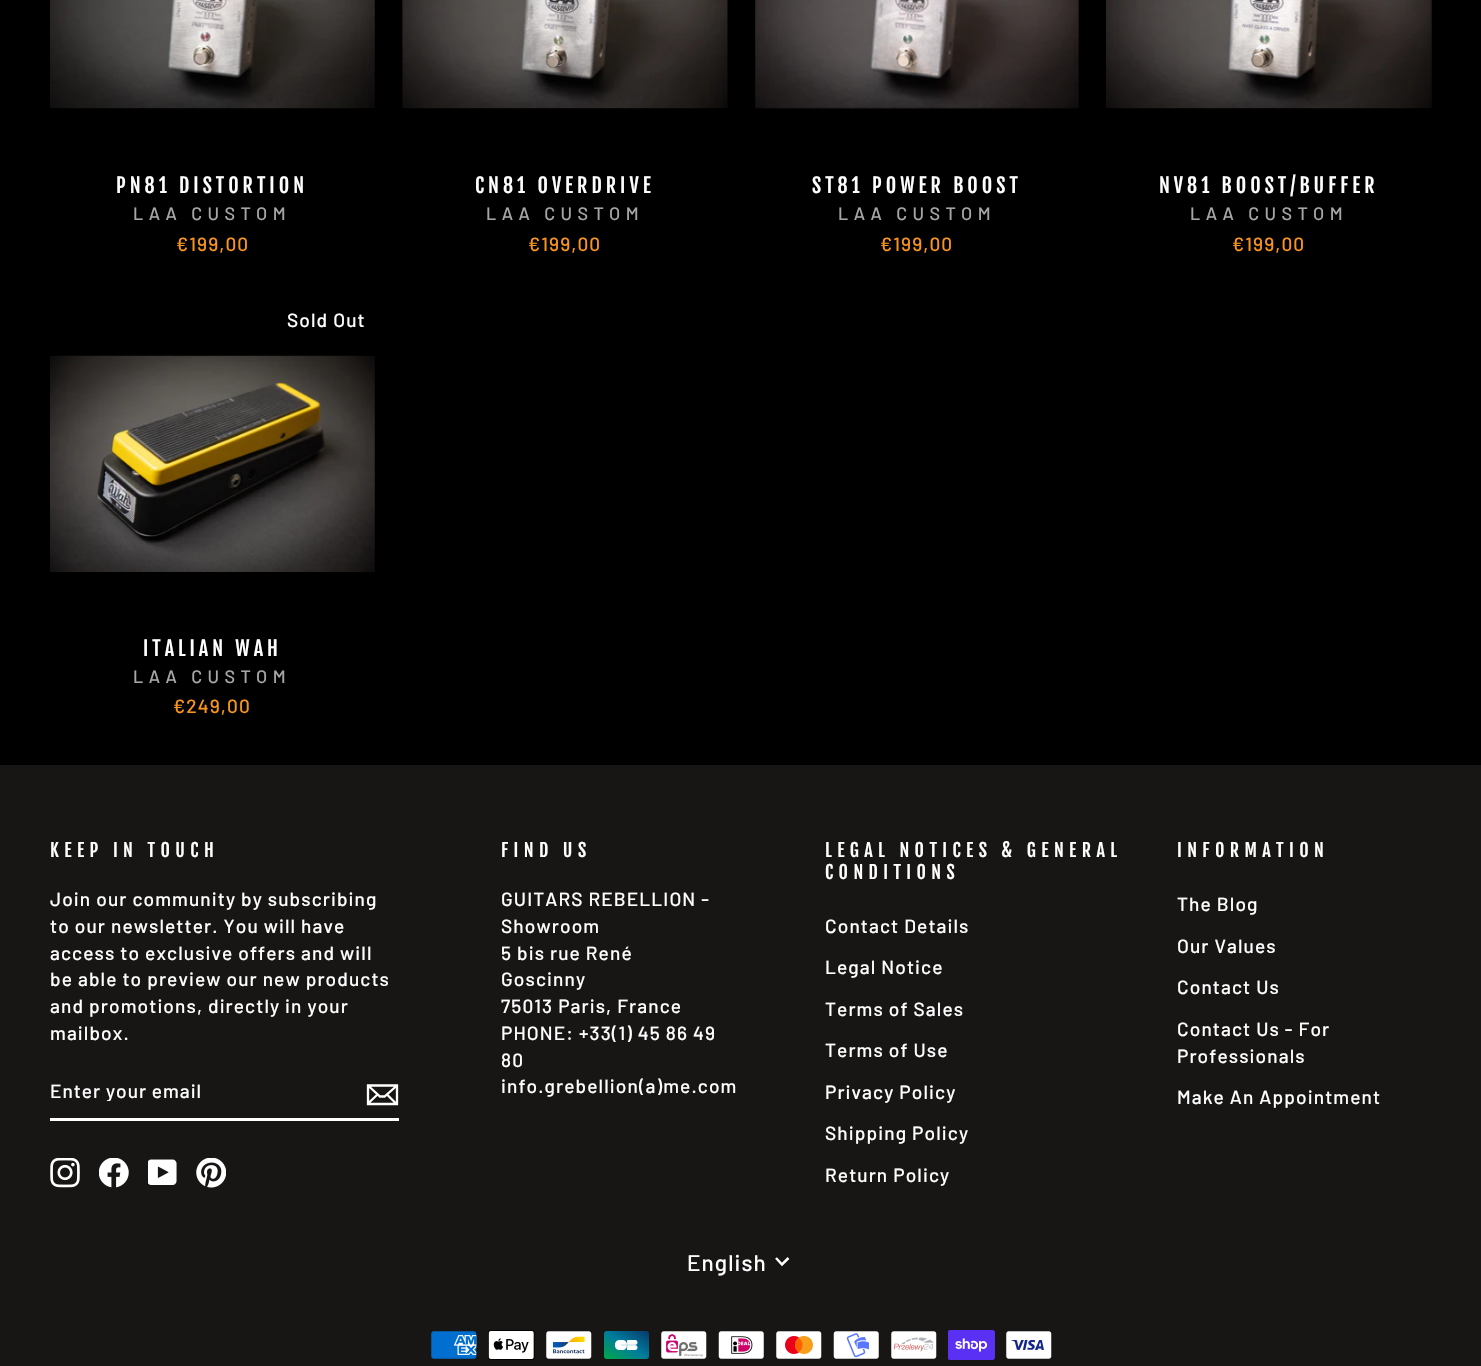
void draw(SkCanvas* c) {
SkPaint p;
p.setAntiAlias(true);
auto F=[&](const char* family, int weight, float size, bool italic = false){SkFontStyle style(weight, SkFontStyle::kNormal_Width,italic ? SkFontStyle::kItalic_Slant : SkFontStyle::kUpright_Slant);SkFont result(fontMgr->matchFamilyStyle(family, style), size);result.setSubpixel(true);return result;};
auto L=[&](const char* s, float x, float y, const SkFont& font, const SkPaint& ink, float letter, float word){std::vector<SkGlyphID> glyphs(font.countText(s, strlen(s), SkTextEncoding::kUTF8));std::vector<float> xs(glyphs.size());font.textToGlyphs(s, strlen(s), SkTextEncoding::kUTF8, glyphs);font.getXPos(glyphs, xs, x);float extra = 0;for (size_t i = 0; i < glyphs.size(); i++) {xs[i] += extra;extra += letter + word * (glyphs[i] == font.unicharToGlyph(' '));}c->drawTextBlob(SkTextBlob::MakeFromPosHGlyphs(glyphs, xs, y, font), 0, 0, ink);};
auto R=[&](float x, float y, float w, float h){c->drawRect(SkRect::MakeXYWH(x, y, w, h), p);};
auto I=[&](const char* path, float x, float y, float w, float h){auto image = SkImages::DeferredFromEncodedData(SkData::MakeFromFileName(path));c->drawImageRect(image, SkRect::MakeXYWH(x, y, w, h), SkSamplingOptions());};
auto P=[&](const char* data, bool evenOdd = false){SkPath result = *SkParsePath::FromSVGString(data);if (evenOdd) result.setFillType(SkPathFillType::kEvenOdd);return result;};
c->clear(0xff000000);
I("1.png",50,0,325,109);
auto f1 = F("Fjalla One",400,20);
p.setColor(0xffffffff);
L("PN81 DISTORTION",116,193,f1,p,4,0);
auto f2 = F("Barlow",500,18);
p.setColor(0xffa6a6a6);
L("LAA CUSTOM",133,220,f2,p,5.4,0);
auto f3 = F("Barlow",500,19.1);
p.setColor(0xfff7941d);
L("€199,00",176,251,f3,p,1.1,0);
I("2.png",402,0,326,109);
p.setColor(0xffffffff);
L("CN81 OVERDRIVE",475,193,f1,p,4,0);
p.setColor(0xffa6a6a6);
L("LAA CUSTOM",486,220,f2,p,5.4,0);
p.setColor(0xfff7941d);
L("€199,00",528,251,f3,p,1.1,0);
I("3.png",755,0,324,109);
p.setColor(0xffffffff);
L("ST81 POWER BOOST",812,193,f1,p,4,0);
p.setColor(0xffa6a6a6);
L("LAA CUSTOM",838,220,f2,p,5.4,0);
p.setColor(0xfff7941d);
L("€199,00",880,251,f3,p,1.1,0);
I("4.png",1106,0,326,109);
p.setColor(0xffffffff);
L("NV81 BOOST/BUFFER",1159,193,f1,p,4,0);
p.setColor(0xffa6a6a6);
L("LAA CUSTOM",1190,220,f2,p,5.4,0);
p.setColor(0xfff7941d);
L("€199,00",1232,251,f3,p,1.1,0);
p.setColor(0xffffffff);
L("Sold Out",287,327,f3,p,1.1,0);
I("5.png",50,355,325,217);
L("ITALIAN WAH",143,656,f1,p,4,0);
p.setColor(0xffa6a6a6);
L("LAA CUSTOM",133,683,f2,p,5.4,0);
p.setColor(0xfff7941d);
L("€249,00",173,713,f3,p,1.1,0);
p.setColor(0xff171615);
R(0,765,1481,601);
auto f4 = F("Fjalla One",400,18);
p.setColor(0xffffffff);
L("KEEP IN TOUCH",50,857,f4,p,5.4,0);
L("Join our community by subscribing",50,906,f3,p,1.1,0);
L("to our newsletter. You will have",50,933,f3,p,1.1,0);
L("access to exclusive offers and will",50,960,f3,p,1.1,0);
L("be able to preview our new products",50,986,f3,p,1.1,0);
L("and promotions, directly in your",50,1013,f3,p,1.1,0);
L("mailbox.",50,1040,f3,p,1.1,0);
R(50,1118,349,3);
c->save();
c->clipRect(SkRect::MakeXYWH(50,1079,293,22));
L("Enter your email",50,1098,f3,p,1,0);
c->restore();
p.setStroke(true);
p.setStrokeWidth(2.3);
c->drawPath(P("M397 1104h-29v-18.5h29zm-29-18.5l12 11h4.5l12.5-11m-19.5 9l-9.5 9m28.5 .5l-9.5-9.5"),p);
I("6.png",50,1158,30,30);
I("7.png",99,1158,30,30);
I("8.png",148,1159,29,26);
I("9.png",196,1158,30,30);
p.setStroke(false);
L("FIND US",501,857,f4,p,5.4,0);
L("GUITARS REBELLION -",501,906,f3,p,1.1,0);
L("Showroom",501,933,f3,p,1.1,0);
L("5 bis rue René",501,960,f3,p,1.1,0);
L("Goscinny",501,986,f3,p,1.1,0);
L("75013 Paris, France",501,1013,f3,p,1.1,0);
L("PHONE: +33(1) 45 86 49",501,1040,f3,p,1.1,0);
L("80",501,1067,f3,p,1.1,0);
L("info.grebellion(a)me.com",501,1093,f3,p,1.1,0);
L("LEGAL NOTICES & GENERAL",825,857,f4,p,5.4,0);
L("CONDITIONS",825,879,f4,p,5.4,0);
L("Contact Details",825,933,f3,p,1.1,0);
L("Legal Notice",825,974,f3,p,1.1,0);
L("Terms of Sales",825,1016,f3,p,1.1,0);
L("Terms of Use",825,1057,f3,p,1.1,0);
L("Privacy Policy",825,1099,f3,p,1.1,0);
L("Shipping Policy",825,1140,f3,p,1.1,0);
L("Return Policy",825,1182,f3,p,1.1,0);
L("INFORMATION",1177,857,f4,p,5.4,0);
L("The Blog",1177,911,f3,p,1.1,0);
L("Our Values",1177,953,f3,p,1.1,0);
L("Contact Us",1177,994,f3,p,1.1,0);
L("Contact Us - For",1177,1036,f3,p,1.1,0);
L("Professionals",1177,1063,f3,p,1.1,0);
L("Make An Appointment",1177,1104,f3,p,1.1,0);
auto f5 = F("Barlow",500,22.5);
L("English",687,1271,f5,p,1.1,0);
p.setStroke(true);
p.setStrokeWidth(2.5);
c->drawPath(P("M776 1258l6 6.5l6.5-6.5"),p);
I("10.png",431,1331,46,28);
I("11.png",488,1330,47,30);
I("12.png",546,1331,46,28);
I("13.png",604,1331,45,28);
I("14.png",661,1331,46,28);
I("15.png",718,1331,46,28);
I("16.png",776,1331,46,28);
I("17.png",833,1331,46,28);
I("18.png",891,1331,46,28);
I("19.png",948,1330,47,30);
I("20.png",1006,1331,46,28);
}
